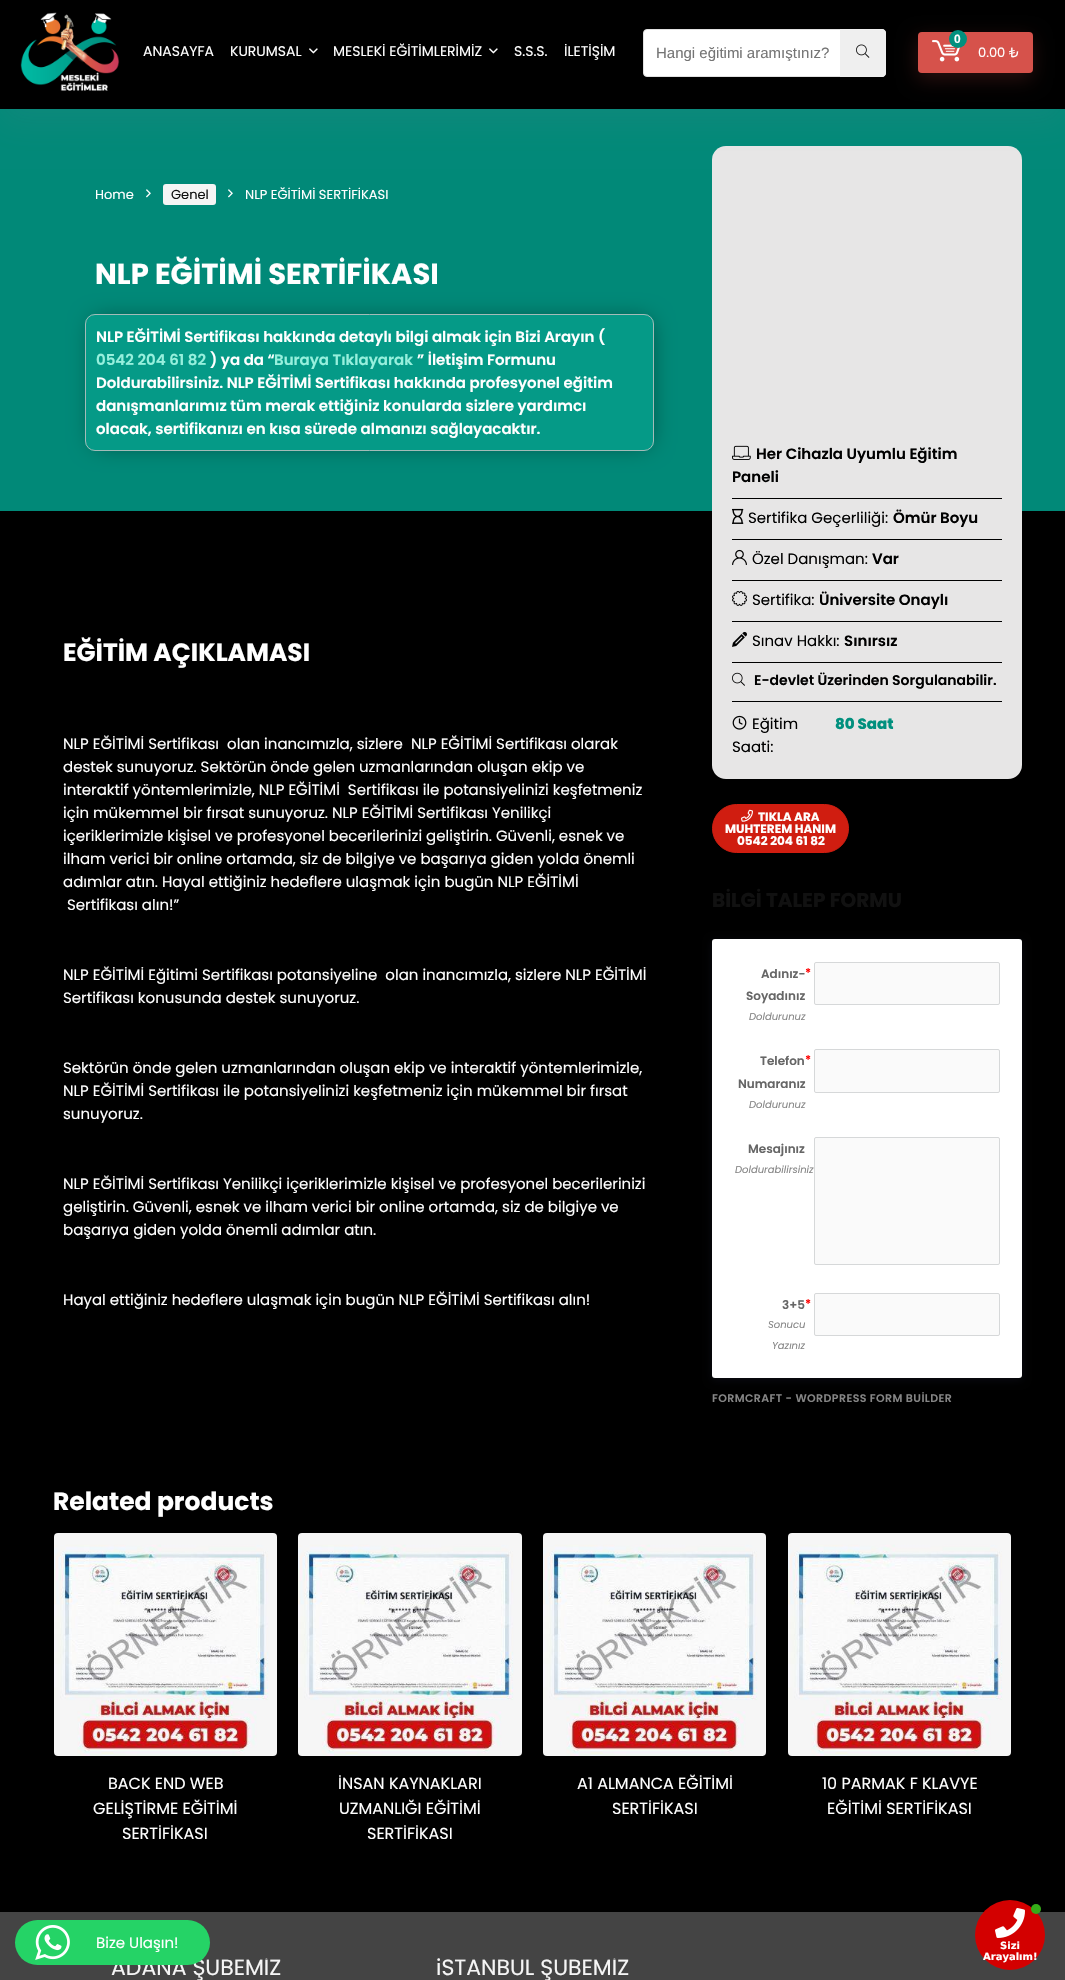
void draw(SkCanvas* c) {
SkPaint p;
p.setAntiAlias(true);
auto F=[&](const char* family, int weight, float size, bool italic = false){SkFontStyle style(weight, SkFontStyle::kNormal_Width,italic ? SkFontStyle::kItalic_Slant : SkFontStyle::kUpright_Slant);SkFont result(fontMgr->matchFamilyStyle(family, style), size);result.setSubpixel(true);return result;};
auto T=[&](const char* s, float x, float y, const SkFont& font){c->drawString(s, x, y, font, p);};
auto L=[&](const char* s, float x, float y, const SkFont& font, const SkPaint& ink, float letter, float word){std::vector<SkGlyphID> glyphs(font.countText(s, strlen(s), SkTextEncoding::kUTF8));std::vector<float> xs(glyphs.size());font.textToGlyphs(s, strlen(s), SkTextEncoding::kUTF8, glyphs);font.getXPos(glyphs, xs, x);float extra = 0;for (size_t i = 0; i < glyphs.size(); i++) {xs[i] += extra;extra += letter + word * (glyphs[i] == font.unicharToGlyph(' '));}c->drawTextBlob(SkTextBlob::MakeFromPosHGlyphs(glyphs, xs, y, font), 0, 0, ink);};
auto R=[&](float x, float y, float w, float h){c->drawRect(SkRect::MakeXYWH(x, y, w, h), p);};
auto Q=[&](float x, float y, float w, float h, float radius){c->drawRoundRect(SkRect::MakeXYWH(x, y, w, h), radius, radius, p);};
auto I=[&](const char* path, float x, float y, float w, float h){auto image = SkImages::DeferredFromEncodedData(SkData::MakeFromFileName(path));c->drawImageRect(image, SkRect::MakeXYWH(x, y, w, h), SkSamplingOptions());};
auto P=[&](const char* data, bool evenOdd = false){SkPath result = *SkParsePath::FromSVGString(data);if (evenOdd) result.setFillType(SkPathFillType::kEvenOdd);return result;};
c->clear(0xff000000);
p.setColor(0xff018978);
R(0,109,1065,402);
p.setColor(0xffe7e6e6);
Q(712,146,310,633,14);
p.setColor(0x1a777b92);
p.setMaskFilter(SkMaskFilter::MakeBlur(kNormal_SkBlurStyle, 15));
c->drawRect(SkRect::MakeXYWH(0,11,1065,113),p);
p.setMaskFilter(nullptr);
p.setColor(0xff000000);
R(0,0,1065,109);
I("1.png",20,12,100,79);
auto f1 = F("Poppins",400,14);
p.setColor(0xffffffff);
T("ANASAYFA",143,56,f1);
T("KURUMSAL",230,56,f1);
I("2.png",309,48,9,6);
T("MESLEKİ EĞİTİMLERİMİZ",333,56,f1);
I("2.png",489,48,9,6);
T("S.S.S.",514,56,f1);
T("İLETİŞİM",564,56,f1);
c->drawRoundRect(SkRect::MakeXYWH(643.5,29.5,242,47),3.5,3.5,p);
p.setStroke(true);
p.setStrokeWidth(1);
p.setColor(0xffe1e1e1);
c->drawRoundRect(SkRect::MakeXYWH(643.5,29.5,242,47),3.5,3.5,p);
c->save();
c->clipRect(SkRect::MakeXYWH(656,44,184,17));
auto f2 = F("Liberation Sans",400,15);
p.setStroke(false);
p.setColor(0xff757575);
T("Hangi eğitimi aramıştınız?",656,58,f2);
c->restore();
p.setColor(0xffefefef);
c->drawPath(P("M840 29h42c2 0 4 2 4 4v40c0 2-2 4-4 4h-42z"),p);
I("3.png",856,44,14,14);
p.setColor(0x33d6524b);
p.setMaskFilter(SkMaskFilter::MakeBlur(kNormal_SkBlurStyle, 9.5));
c->drawRoundRect(SkRect::MakeXYWH(917,38,115,41),4,4,p);
p.setMaskFilter(nullptr);
p.setColor(0xffd6524b);
Q(918,32,115,41,4);
I("4.png",932,40,28,22);
p.setColor(0xff01907e);
c->drawCircle(958,39,9,p);
auto f3 = F("Liberation Sans",700,12);
p.setColor(0xffffffff);
T("0",954,43,f3);
auto f4 = F("Poppins",400,13);
T("0.00 ₺",978,57,f4);
T("Home",95,199,f4);
I("5.png",146,189,5,9);
p.setColor(0xfff5f5f5);
Q(163,184,53,21,3);
p.setColor(0xff111111);
T("Genel",171,199,f4);
I("5.png",228,189,5,9);
p.setColor(0xffffffff);
T("NLP EĞİTİMİ SERTİFİKASI",245,199,f4);
auto f5 = F("Poppins",700,29);
T("NLP EĞİTİMİ SERTİFİKASI",95,284,f5);
c->save();
c->clipPath(P("M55 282h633v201h-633zm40 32h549c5.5 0 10 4.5 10 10v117c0 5.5-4.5 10-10 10h-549c-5.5 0-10-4.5-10-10v-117c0-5.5 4.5-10 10-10z",true),true);
p.setColor(0x80000000);
p.setMaskFilter(SkMaskFilter::MakeBlur(kNormal_SkBlurStyle, 12.5));
c->drawRoundRect(SkRect::MakeXYWH(94,321,555,123),3,3,p);
p.setMaskFilter(nullptr);
c->restore();
p.setColor(0xd4059c89);
Q(85,314,569,137,10);
p.setStroke(true);
p.setColor(0xcccac4c4);
c->drawRoundRect(SkRect::MakeXYWH(85.5,314.5,568,136),9.5,9.5,p);
auto f6 = F("Poppins",600,15);
p.setStroke(false);
p.setColor(0xffffffff);
T("NLP EĞİTİMİ Sertifikası hakkında detaylı bilgi almak için Bizi Arayın (",96,342,f6);
p.setColor(0xff97f0dd);
T("0542 204 61 82",96,365,f6);
p.setColor(0xffffffff);
T(") ya da “",210,365,f6);
p.setColor(0xff97f0dd);
T("Buraya Tıklayarak",274,365,f6);
p.setColor(0xffffffff);
T("” İletişim Formunu",417,365,f6);
T("Doldurabilirsiniz. NLP EĞİTİMİ Sertifikası hakkında profesyonel eğitim",96,388,f6);
T("danışmanlarımız tüm merak ettiğiniz konularda sizlere yardımcı",96,411,f6);
T("olacak, sertifikanızı en kısa sürede almanızı sağlayacaktır.",96,434,f6);
auto f7 = F("Poppins",700,25);
T("EĞİTİM AÇIKLAMASI",63,661,f7);
auto f8 = F("Poppins",400,15);
T("NLP EĞİTİMİ Sertifikası  olan inancımızla, sizlere  NLP EĞİTİMİ Sertifikası olarak",63,749,f8);
T("destek sunuyoruz. Sektörün önde gelen uzmanlarından oluşan ekip ve",63,772,f8);
T("interaktif yöntemlerimizle, NLP EĞİTİMİ  Sertifikası ile potansiyelinizi keşfetmeniz",63,795,f8);
T("için mükemmel bir fırsat sunuyoruz. NLP EĞİTİMİ Sertifikası Yenilikçi",63,818,f8);
T("içeriklerimizle kişisel ve profesyonel becerilerinizi geliştirin. Güvenli, esnek ve",63,841,f8);
T("ilham verici bir online ortamda, siz de bilgiye ve başarıya giden yolda önemli",63,864,f8);
T("adımlar atın. Hayal ettiğiniz hedeflere ulaşmak için bugün NLP EĞİTİMİ",63,887,f8);
T("Sertifikası alın!”",67,910,f8);
T("NLP EĞİTİMİ Eğitimi Sertifikası potansiyeline  olan inancımızla, sizlere NLP EĞİTİMİ",63,980,f8);
T("Sertifikası konusunda destek sunuyoruz.",63,1003,f8);
T("Sektörün önde gelen uzmanlarından oluşan ekip ve interaktif yöntemlerimizle,",63,1073,f8);
T("NLP EĞİTİMİ Sertifikası ile potansiyelinizi keşfetmeniz için mükemmel bir fırsat",63,1096,f8);
T("sunuyoruz.",63,1119,f8);
T("NLP EĞİTİMİ Sertifikası Yenilikçi içeriklerimizle kişisel ve profesyonel becerilerinizi",63,1189,f8);
T("geliştirin. Güvenli, esnek ve ilham verici bir online ortamda, siz de bilgiye ve",63,1212,f8);
T("başarıya giden yolda önemli adımlar atın.",63,1235,f8);
T("Hayal ettiğiniz hedeflere ulaşmak için bugün NLP EĞİTİMİ Sertifikası alın!",63,1305,f8);
I("6.png",732,445,19,15);
p.setColor(0xff000000);
T("Her Cihazla Uyumlu Eğitim",756,459,f6);
T("Paneli",732,482,f6);
R(732,498,270,1);
I("7.png",732,508,12,16);
T("Sertifika Geçerliliği:",748,523,f8);
T("Ömür Boyu",893,523,f6);
R(732,539,270,1);
I("8.png",732,549,15,16);
T("Özel Danışman:",752,564,f8);
T("Var",872,564,f6);
R(732,580,270,1);
I("9.png",732,591,15,15);
T("Sertifika:",752,605,f8);
T("Üniversite Onaylı",819,605,f6);
R(732,621,270,1);
I("10.png",732,631,15,16);
T("Sınav Hakkı:",752,646,f8);
T("Sınırsız",844,646,f6);
R(732,662,270,1);
I("11.png",732,672,13,14);
auto f9 = F("Poppins",600,14);
T("E-devlet Üzerinden Sorgulanabilir.",754,685,f9);
R(732,701,270,1);
I("12.png",732,715,15,15);
T("Eğitim",752,729,f8);
T("Saati:",732,752,f8);
auto f10 = F("Poppins",800,15);
p.setColor(0xff01907e);
T("80 Saat",835,729,f10);
p.setColor(0xffd01d10);
c->drawRoundRect(SkRect::MakeXYWH(712.5,804.5,136,48),24,24,p);
p.setStroke(true);
c->drawRoundRect(SkRect::MakeXYWH(712.5,804.5,136,48),24,24,p);
I("13.png",741,809,12,13);
auto f11 = F("Poppins",700,12);
p.setStroke(false);
p.setColor(0xffffffff);
T("TIKLA ARA",758,821,f11);
T("MUHTEREM HANIM",725,833,f11);
T("0542 204 61 82",737,845,f11);
auto f12 = F("Poppins",700,20);
p.setColor(0xff111111);
T("BİLGİ TALEP FORMU",712,907,f12);
p.setColor(0x3332375a);
p.setMaskFilter(SkMaskFilter::MakeBlur(kNormal_SkBlurStyle, 4));
c->drawRoundRect(SkRect::MakeXYWH(712,941,310,439),3,3,p);
p.setMaskFilter(nullptr);
p.setColor(0xffffffff);
Q(712,939,310,439,3);
auto f13 = F("Poppins",600,12);
p.setColor(0xff666666);
T("Adınız-",761,978,f13);
p.setColor(0xffff0000);
T("*",805,977,f13);
p.setColor(0xff666666);
T("Soyadınız",746,1000,f13);
auto f14 = F("Poppins",400,10,true);
p.setColor(0xff858585);
T("Doldurunuz",749,1020,f14);
p.setColor(0xfffafafa);
c->drawRoundRect(SkRect::MakeXYWH(814.5,962.5,185,42),1.5,1.5,p);
p.setStroke(true);
p.setColor(0xffd6d8d9);
c->drawRoundRect(SkRect::MakeXYWH(814.5,962.5,185,42),1.5,1.5,p);
p.setStroke(false);
p.setColor(0xff666666);
T("Telefon",760,1065,f13);
p.setColor(0xffff0000);
T("*",805,1064,f13);
p.setColor(0xff666666);
T("Numaranız",738,1088,f13);
p.setColor(0xff858585);
T("Doldurunuz",749,1108,f14);
p.setColor(0xfffafafa);
c->drawRoundRect(SkRect::MakeXYWH(814.5,1049.5,185,43),1.5,1.5,p);
p.setStroke(true);
p.setColor(0xffd6d8d9);
c->drawRoundRect(SkRect::MakeXYWH(814.5,1049.5,185,43),1.5,1.5,p);
p.setStroke(false);
p.setColor(0xff666666);
T("Mesajınız",748,1153,f13);
p.setColor(0xff858585);
T("Doldurabilirsiniz",735,1173,f14);
p.setColor(0xfffafafa);
c->drawRoundRect(SkRect::MakeXYWH(814.5,1137.5,185,127),1.5,1.5,p);
p.setStroke(true);
p.setColor(0xffd6d8d9);
c->drawRoundRect(SkRect::MakeXYWH(814.5,1137.5,185,127),1.5,1.5,p);
p.setStroke(false);
p.setColor(0xff666666);
T("3+5",782,1309,f13);
p.setColor(0xffff0000);
T("*",805,1308,f13);
p.setColor(0xff858585);
T("Sonucu",768,1328,f14);
T("Yazınız",772,1349,f14);
p.setColor(0xfffafafa);
c->drawRoundRect(SkRect::MakeXYWH(814.5,1293.5,185,42),1.5,1.5,p);
p.setStroke(true);
p.setColor(0xffd6d8d9);
c->drawRoundRect(SkRect::MakeXYWH(814.5,1293.5,185,42),1.5,1.5,p);
auto f15 = F("Poppins",600,11);
p.setStroke(false);
p.setColor(0xff858585);
L("FORMCRAFT - WORDPRESS FORM BUİLDER",712,1402,f15,p,.4,0);
p.setColor(0xffffffff);
T("Related products",53,1510,f7);
I("14.png",54,1533,223,223);
auto f16 = F("Poppins",400,16);
T("BACK END WEB",108,1789,f16);
T("GELİŞTİRME EĞİTİMİ",93,1814,f16);
T("SERTİFİKASI",122,1839,f16);
I("15.png",298,1533,224,223);
T("İNSAN KAYNAKLARI",338,1789,f16);
T("UZMANLIĞI EĞİTİMİ",339,1814,f16);
T("SERTİFİKASI",367,1839,f16);
I("16.png",543,1533,223,223);
T("A1 ALMANCA EĞİTİMİ",577,1789,f16);
T("SERTİFİKASI",612,1814,f16);
I("14.png",788,1533,223,223);
T("10 PARMAK F KLAVYE",822,1789,f16);
T("EĞİTİMİ SERTİFİKASI",827,1814,f16);
p.setColor(0xff444444);
R(0,1912,1065,68);
c->save();
c->clipRect(SkRect::MakeXYWH(43,1958,306,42));
auto f17 = F("Poppins",400,22);
p.setColor(0xfff5f5f5);
T("ADANA ŞUBEMİZ",111,1975,f17);
c->restore();
c->save();
c->clipRect(SkRect::MakeXYWH(379,1958,307,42));
T("iSTANBUL ŞUBEMİZ",436,1975,f17);
c->restore();
p.setColor(0xff25d366);
Q(15,1920,195,45,22.5);
I("17.png",35,1925,35,35);
p.setColor(0xffffffff);
T("Bize Ulaşın!",96,1948,f8);
p.setColor(0xffd30000);
c->drawCircle(1010,1935,35,p);
p.setColor(0xff35ac19);
c->drawCircle(1036,1909,5,p);
I("18.png",995,1908,30,30);
auto f18 = F("DejaVu Sans",700,10);
p.setColor(0xffffffff);
T("Sizi",1000,1949,f18);
T("Arayalım!",983,1960,f18);
}
